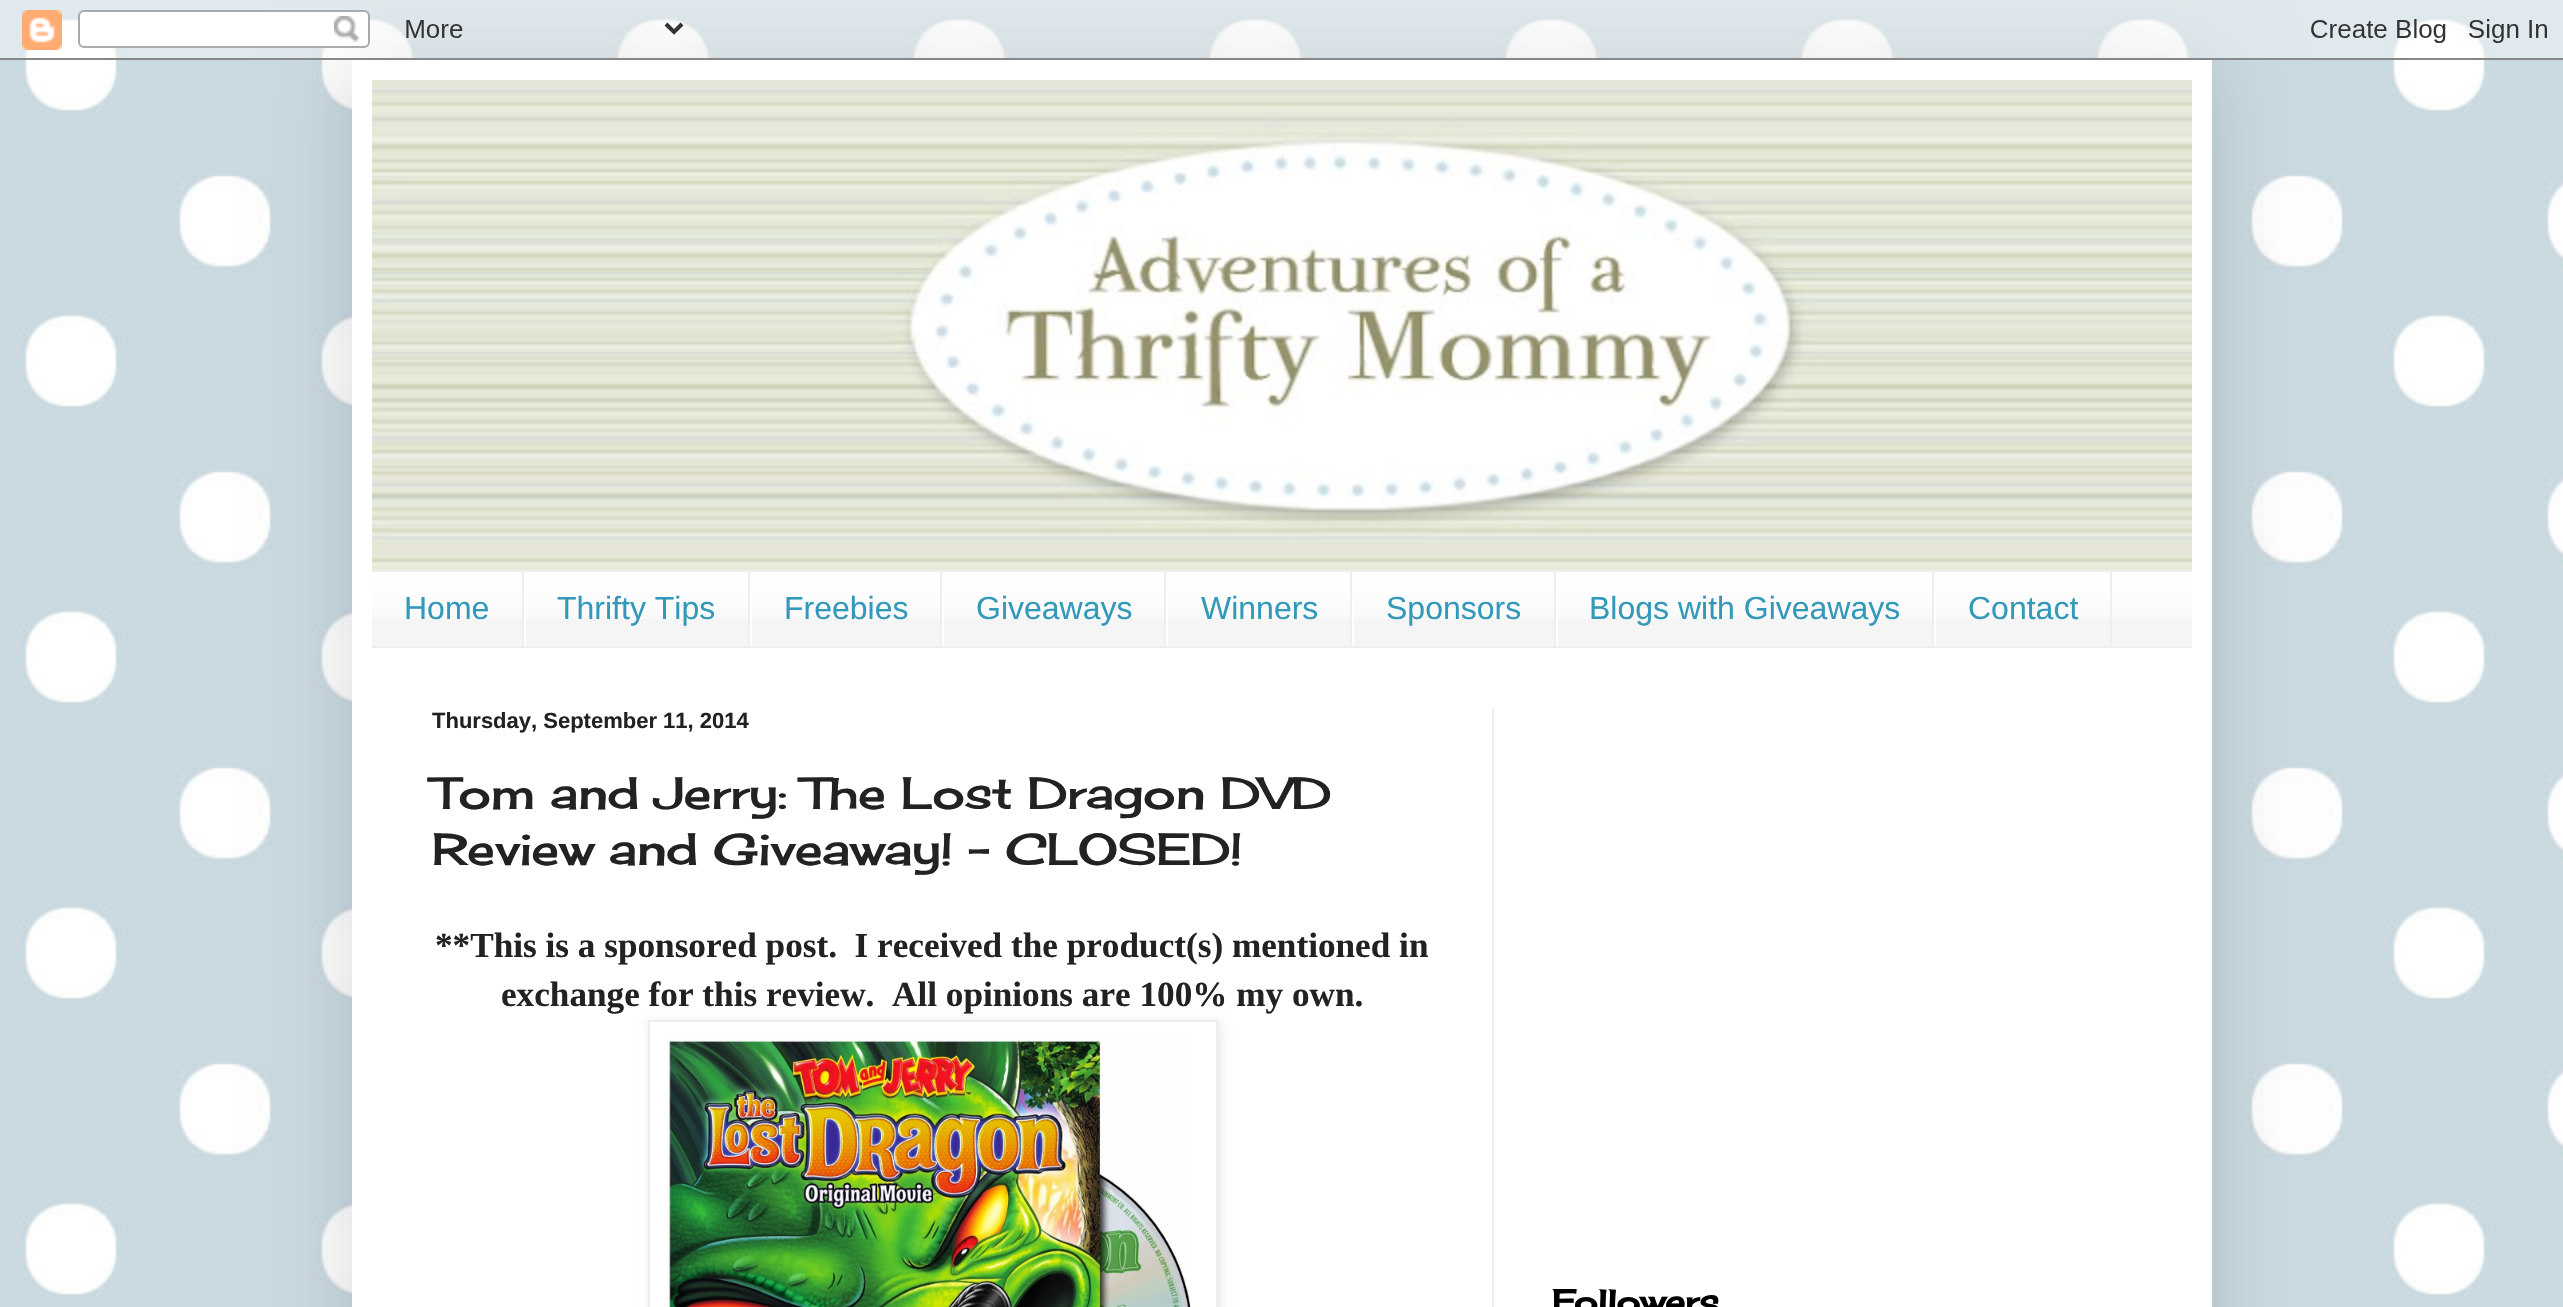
void draw(SkCanvas* c) {
SkPaint p;
p.setAntiAlias(true);
auto F=[&](const char* family, int weight, float size, bool italic = false){SkFontStyle style(weight, SkFontStyle::kNormal_Width,italic ? SkFontStyle::kItalic_Slant : SkFontStyle::kUpright_Slant);SkFont result(fontMgr->matchFamilyStyle(family, style), size);result.setSubpixel(true);return result;};
auto T=[&](const char* s, float x, float y, const SkFont& font){c->drawString(s, x, y, font, p);};
auto R=[&](float x, float y, float w, float h){c->drawRect(SkRect::MakeXYWH(x, y, w, h), p);};
auto I=[&](const char* path, float x, float y, float w, float h){auto image = SkImages::DeferredFromEncodedData(SkData::MakeFromFileName(path));c->drawImageRect(image, SkRect::MakeXYWH(x, y, w, h), SkSamplingOptions());};
auto P=[&](const char* data, bool evenOdd = false){SkPath result = *SkParsePath::FromSVGString(data);if (evenOdd) result.setFillType(SkPathFillType::kEvenOdd);return result;};
c->clear(0xffffffff);
I("1.png",0,0,2563,1307);
p.setColor(0x26000000);
p.setMaskFilter(SkMaskFilter::MakeBlur(kNormal_SkBlurStyle, 40));
c->drawRect(SkRect::MakeXYWH(352,60,1860,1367),p);
p.setMaskFilter(nullptr);
I("2.png",0,0,2563,60);
p.setColor(0xffffffff);
R(352,60,1860,1247);
I("3.png",372,80,1820,490);
p.setColor(0xfff5f5f5);
R(372,572,1820,74);
I("4.png",372,572,1820,47);
p.setColor(0xffeeeeee);
R(372,570,1820,2);
R(372,646,1820,2);
R(522,572,2,74);
auto f1 = F("Liberation Sans",400,32);
p.setColor(0xff3399bb);
T("Home",404,619,f1);
p.setColor(0xffeeeeee);
R(748,572,2,74);
p.setColor(0xffffffff);
R(524,594,2,52);
p.setColor(0xff3399bb);
T("Thrifty Tips",557,619,f1);
p.setColor(0xffeeeeee);
R(940,572,2,74);
p.setColor(0xffffffff);
R(750,594,2,52);
p.setColor(0xff3399bb);
T("Freebies",784,619,f1);
p.setColor(0xffeeeeee);
R(1164,572,2,74);
p.setColor(0xffffffff);
R(942,594,2,52);
p.setColor(0xff3399bb);
T("Giveaways",976,619,f1);
p.setColor(0xffeeeeee);
R(1350,572,2,74);
p.setColor(0xffffffff);
R(1166,594,2,52);
p.setColor(0xff3399bb);
T("Winners",1201,619,f1);
p.setColor(0xffeeeeee);
R(1554,572,2,74);
p.setColor(0xffffffff);
R(1352,594,2,52);
p.setColor(0xff3399bb);
T("Sponsors",1386,619,f1);
p.setColor(0xffeeeeee);
R(1932,572,2,74);
p.setColor(0xffffffff);
R(1556,594,2,52);
p.setColor(0xff3399bb);
T("Blogs with Giveaways",1589,619,f1);
p.setColor(0xffeeeeee);
R(2110,572,2,74);
p.setColor(0xffffffff);
R(1934,594,2,52);
p.setColor(0xff3399bb);
T("Contact",1968,619,f1);
p.setColor(0xffeeeeee);
R(1492,708,2,599);
auto f2 = F("Liberation Sans",700,22);
p.setColor(0xff222222);
T("Thursday, September 11, 2014",432,728,f2);
auto f3 = F("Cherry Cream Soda",400,44);
T("Tom and Jerry: The Lost Dragon DVD",432,809,f3);
T("Review and Giveaway! - CLOSED!",432,865,f3);
auto f4 = F("Liberation Serif",700,35.2);
T("**This is a sponsored post.  I received the product(s) mentioned in",435,957,f4);
T("exchange for this review.  All opinions are 100% my own.",501,1006,f4);
c->save();
c->clipPath(P("M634 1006h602v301h-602zm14 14h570v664h-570z",true),true);
p.setColor(0x1a000000);
p.setMaskFilter(SkMaskFilter::MakeBlur(kNormal_SkBlurStyle, 5));
c->drawRect(SkRect::MakeXYWH(650,1022,570,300),p);
p.setMaskFilter(nullptr);
c->restore();
p.setStroke(true);
p.setStrokeWidth(2);
p.setColor(0xffeeeeee);
c->drawRect(SkRect::MakeXYWH(649,1021,568,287),p);
I("5.png",667,1038,524,269);
auto f5 = F("Cherry Cream Soda",700,32);
p.setStroke(false);
p.setColor(0xff000000);
T("Followers",1552,1313,f5);
}
